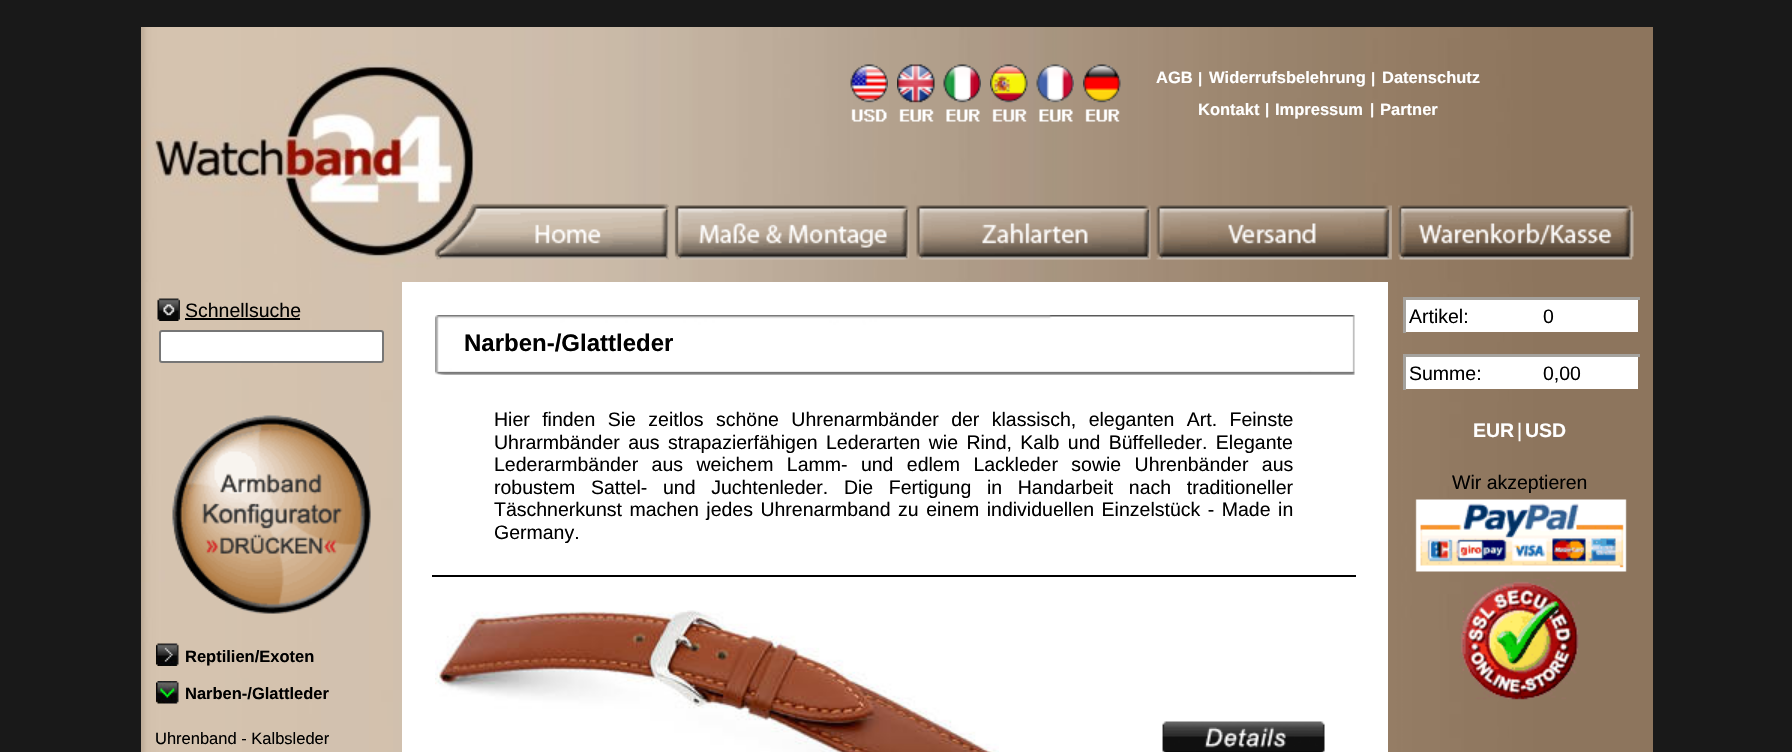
void draw(SkCanvas* c) {
SkPaint p;
p.setAntiAlias(true);
auto F=[&](const char* family, int weight, float size, bool italic = false){SkFontStyle style(weight, SkFontStyle::kNormal_Width,italic ? SkFontStyle::kItalic_Slant : SkFontStyle::kUpright_Slant);SkFont result(fontMgr->matchFamilyStyle(family, style), size);result.setSubpixel(true);return result;};
auto T=[&](const char* s, float x, float y, const SkFont& font){c->drawString(s, x, y, font, p);};
auto L=[&](const char* s, float x, float y, const SkFont& font, const SkPaint& ink, float letter, float word){std::vector<SkGlyphID> glyphs(font.countText(s, strlen(s), SkTextEncoding::kUTF8));std::vector<float> xs(glyphs.size());font.textToGlyphs(s, strlen(s), SkTextEncoding::kUTF8, glyphs);font.getXPos(glyphs, xs, x);float extra = 0;for (size_t i = 0; i < glyphs.size(); i++) {xs[i] += extra;extra += letter + word * (glyphs[i] == font.unicharToGlyph(' '));}c->drawTextBlob(SkTextBlob::MakeFromPosHGlyphs(glyphs, xs, y, font), 0, 0, ink);};
auto R=[&](float x, float y, float w, float h){c->drawRect(SkRect::MakeXYWH(x, y, w, h), p);};
auto I=[&](const char* path, float x, float y, float w, float h){auto image = SkImages::DeferredFromEncodedData(SkData::MakeFromFileName(path));c->drawImageRect(image, SkRect::MakeXYWH(x, y, w, h), SkSamplingOptions());};
c->clear(0xff191919);
I("1.png",141,27,1512,255);
I("2.png",850,64,38,58);
I("3.png",897,64,38,58);
I("4.png",943,64,38,58);
I("5.png",990,64,38,58);
I("6.png",1036,64,38,58);
I("7.png",1083,64,38,58);
auto f1 = F("Liberation Sans",700,16.5);
p.setColor(0xffffffff);
T("AGB",1156,83,f1);
auto f2 = F("Liberation Sans",700,15);
T("|",1198,83,f2);
T("Widerrufsbelehrung",1209,83,f1);
T("|",1371,83,f2);
T("Datenschutz",1382,83,f1);
T("Kontakt",1198,115,f1);
T("|",1265,114,f2);
T("Impressum",1275,115,f1);
T("|",1370,114,f2);
T("Partner",1380,115,f1);
I("8.png",434,203,235,57);
I("9.png",674,205,236,55);
I("10.png",916,205,235,55);
I("11.png",1156,205,236,55);
I("12.png",1398,205,236,55);
I("13.png",141,282,1512,470);
I("14.png",157,298,23,23);
auto f3 = F("Liberation Sans",400,19.5);
p.setColor(0xff000000);
T("Schnellsuche",185,317,f3);
R(185,318,115,2);
p.setColor(0xffffffff);
c->drawRoundRect(SkRect::MakeXYWH(160,331,223,31),2,2,p);
p.setStroke(true);
p.setStrokeWidth(2);
p.setColor(0xff767676);
c->drawRoundRect(SkRect::MakeXYWH(160,331,223,31),2,2,p);
I("15.png",172,415,199,199);
I("16.png",156,643,23,23);
p.setStroke(false);
p.setColor(0xff000000);
T("Reptilien/Exoten",185,662,f1);
I("17.png",156,681,23,23);
T("Narben-/Glattleder",185,699,f1);
auto f4 = F("Liberation Sans",400,16.5);
T("Uhrenband - Kalbsleder",155,744,f4);
p.setColor(0xffffffff);
R(402,282,986,470);
I("18.png",435,315,920,60);
auto f5 = F("Liberation Sans",700,24);
p.setColor(0xff000000);
T("Narben-/Glattleder",464,351,f5);
L("Hier finden Sie zeitlos schöne Uhrenarmbänder der klassisch, eleganten Art. Feinste",494,426,f3,p,0,7);
L("Uhrarmbänder aus strapazierfähigen Lederarten wie Rind, Kalb und Büffelleder. Elegante",494,449,f3,p,0,3);
L("Lederarmbänder aus weichem Lamm- und edlem Lackleder sowie Uhrenbänder aus",494,471,f3,p,0,8);
L("robustem Sattel- und Juchtenleder. Die Fertigung in Handarbeit nach traditioneller",494,494,f3,p,0,10.25);
L("Täschnerkunst machen jedes Uhrenarmband zu einem individuellen Einzelstück - Made in",494,516,f3,p,0,2.1);
T("Germany.",494,539,f3);
R(432,575,924,2);
I("19.png",435,610,564,142);
I("20.png",1162,721,163,31);
p.setColor(0xffffffff);
R(1406,300,232,32);
p.setColor(0xffa5a29d);
R(1403,297,237,3);
R(1403,297,3,36);
p.setColor(0xff000000);
T("Artikel:",1409,323,f3);
T("0",1543,323,f3);
p.setColor(0xffffffff);
R(1406,357,232,32);
p.setColor(0xffa5a29d);
R(1403,354,237,3);
R(1403,354,3,36);
p.setColor(0xff000000);
T("Summe:",1409,380,f3);
T("0,00",1543,380,f3);
auto f6 = F("Liberation Sans",700,19.5);
p.setColor(0xffffffff);
T("EUR",1473,437,f6);
T("|",1517,437,f3);
T("USD",1525,437,f6);
p.setColor(0xff000000);
T("Wir akzeptieren",1452,489,f3);
I("21.png",1415,499,212,201);
}
